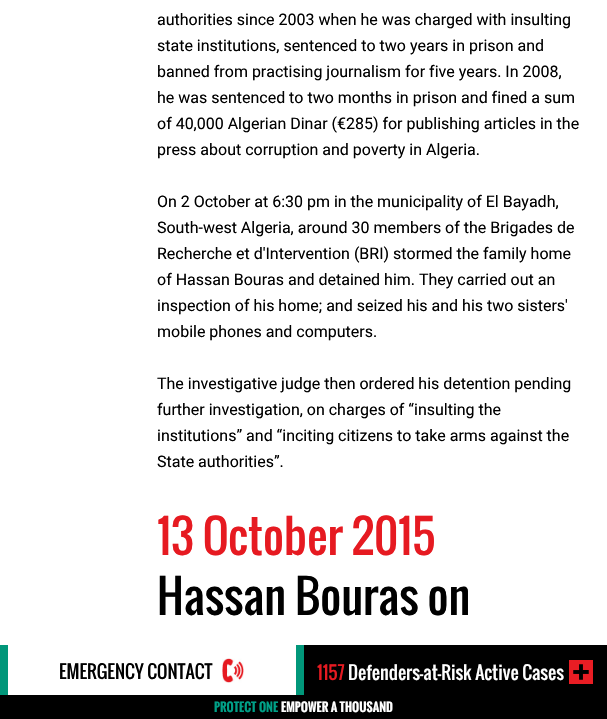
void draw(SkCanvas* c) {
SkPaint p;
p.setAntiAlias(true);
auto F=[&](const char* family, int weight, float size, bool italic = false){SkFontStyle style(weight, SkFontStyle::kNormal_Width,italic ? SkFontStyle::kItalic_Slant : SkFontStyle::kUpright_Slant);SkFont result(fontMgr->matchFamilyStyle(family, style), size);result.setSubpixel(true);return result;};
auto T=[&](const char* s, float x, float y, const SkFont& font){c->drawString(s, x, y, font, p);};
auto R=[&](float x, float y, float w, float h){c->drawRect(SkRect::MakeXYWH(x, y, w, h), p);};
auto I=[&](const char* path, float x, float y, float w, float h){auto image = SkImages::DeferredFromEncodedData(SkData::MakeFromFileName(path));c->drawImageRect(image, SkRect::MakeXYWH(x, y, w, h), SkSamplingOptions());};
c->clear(0xffffffff);
auto f1 = F("Roboto",400,16);
p.setColor(0xff000000);
T("authorities since 2003 when he was charged with insulting",157,25,f1);
T("state institutions, sentenced to two years in prison and",157,51,f1);
T("banned from practising journalism for five years. In 2008,",157,77,f1);
T("he was sentenced to two months in prison and fined a sum",157,103,f1);
T("of 40,000 Algerian Dinar (€285) for publishing articles in the",157,129,f1);
T("press about corruption and poverty in Algeria.",157,155,f1);
T("On 2 October at 6:30 pm in the municipality of El Bayadh,",157,207,f1);
T("South-west Algeria, around 30 members of the Brigades de",157,233,f1);
T("Recherche et d'Intervention (BRI) stormed the family home",157,259,f1);
T("of Hassan Bouras and detained him. They carried out an",157,285,f1);
T("inspection of his home; and seized his and his two sisters'",157,311,f1);
T("mobile phones and computers.",157,337,f1);
T("The investigative judge then ordered his detention pending",157,389,f1);
T("further investigation, on charges of “insulting the",157,415,f1);
T("institutions” and “inciting citizens to take arms against the",157,441,f1);
T("State authorities”.",157,467,f1);
auto f2 = F("Oswald",400,45);
p.setColor(0xffe61a21);
T("13 October 2015",157,555,f2);
p.setColor(0xff000000);
T("Hassan Bouras on",157,615,f2);
R(0,645,607,74);
p.setColor(0xffffffff);
R(8,645,288,50);
p.setColor(0xff01977a);
R(296,645,8,50);
R(0,645,8,50);
auto f3 = F("Oswald",400,18);
p.setColor(0xff000000);
T("EMERGENCY CONTACT",59,679,f3);
I("1.png",222,658,22,25);
p.setColor(0xffe61a21);
T("1157",317,680,f3);
p.setColor(0xffffffff);
T("Defenders-at-Risk Active Cases",348,680,f3);
I("2.png",569,660,24,24);
auto f4 = F("Oswald",700,12);
p.setColor(0xff00a087);
T("PROTECT ONE",214,712,f4);
p.setColor(0xffffffff);
T("EMPOWER A THOUSAND",281,712,f4);
}
